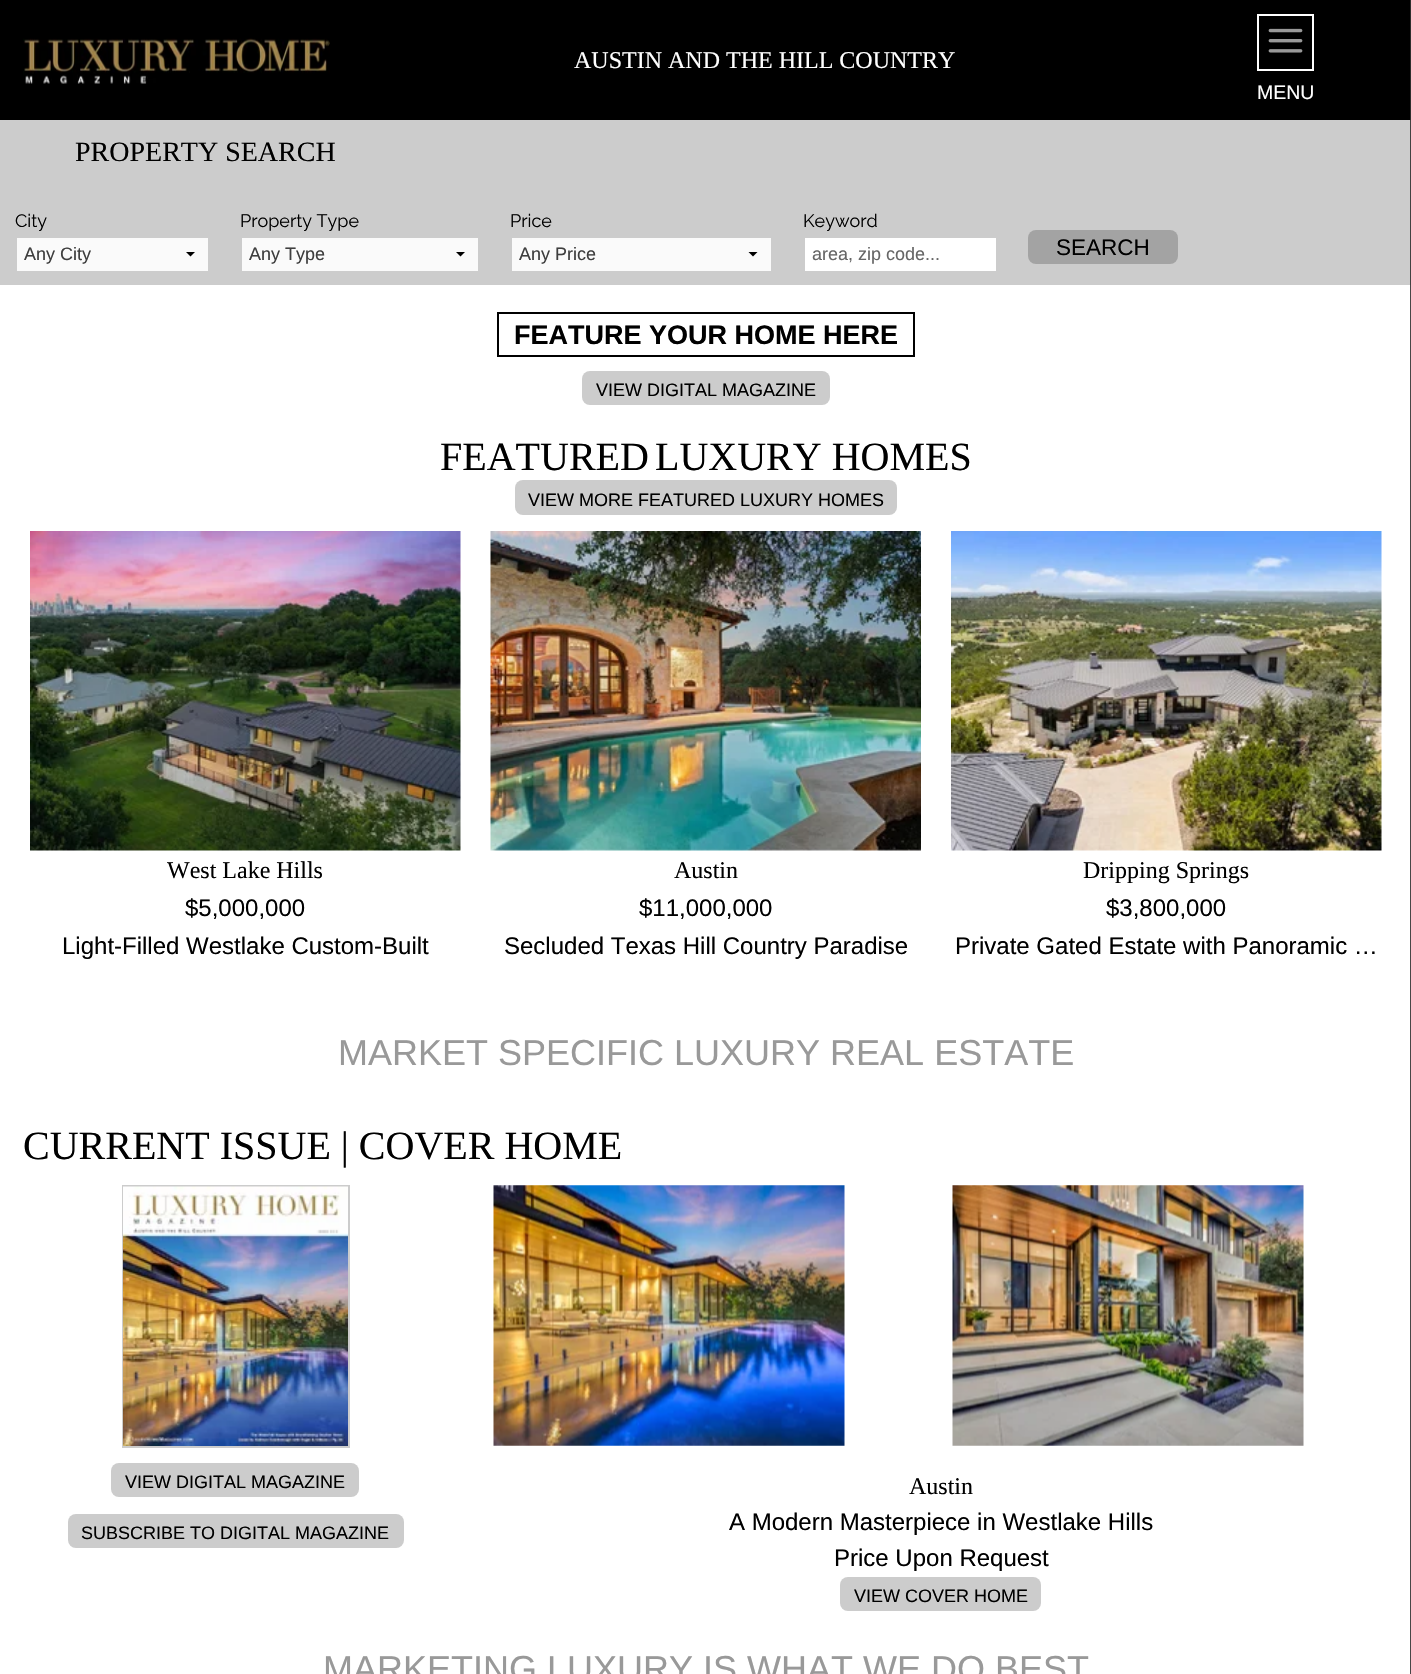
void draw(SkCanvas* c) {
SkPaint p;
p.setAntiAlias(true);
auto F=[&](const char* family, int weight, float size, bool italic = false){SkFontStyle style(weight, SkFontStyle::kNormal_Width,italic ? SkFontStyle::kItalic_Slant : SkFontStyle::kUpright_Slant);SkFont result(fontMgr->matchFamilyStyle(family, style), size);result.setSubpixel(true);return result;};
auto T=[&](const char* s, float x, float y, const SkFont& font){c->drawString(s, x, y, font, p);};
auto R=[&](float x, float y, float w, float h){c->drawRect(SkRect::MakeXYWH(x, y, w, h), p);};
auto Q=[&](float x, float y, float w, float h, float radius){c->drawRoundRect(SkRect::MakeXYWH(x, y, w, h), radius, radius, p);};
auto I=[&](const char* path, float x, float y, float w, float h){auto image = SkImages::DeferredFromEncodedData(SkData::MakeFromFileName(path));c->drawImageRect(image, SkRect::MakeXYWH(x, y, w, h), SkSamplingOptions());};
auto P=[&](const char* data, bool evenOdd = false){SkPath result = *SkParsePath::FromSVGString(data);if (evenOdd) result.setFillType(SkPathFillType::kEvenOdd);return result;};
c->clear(0xffffffff);
p.setColor(0xff474747);
R(1410,285,1,1389);
p.setColor(0xff000000);
R(0,0,1410,120);
p.setColor(0xff2e2e2e);
R(1410,0,1,120);
I("1.png",23,38,307,46);
auto f1 = F("Liberation Serif",400,24);
p.setColor(0xffffffff);
T("AUSTIN AND THE HILL COUNTRY",574,68,f1);
p.setStroke(true);
p.setStrokeWidth(2);
c->drawRect(SkRect::MakeXYWH(1258,15,55,55),p);
I("2.png",1268,28,35,25);
auto f2 = F("Liberation Sans",400,19.5);
p.setStroke(false);
T("MENU",1257,99,f2);
p.setColor(0xffcccccc);
R(0,120,1410,165);
p.setColor(0xff424242);
R(1410,120,1,165);
auto f3 = F("Liberation Serif",400,28);
p.setColor(0xff000000);
T("PROPERTY SEARCH",75,161,f3);
auto f4 = F("Raleway",400,18);
T("City",15,227,f4);
p.setColor(0xfffafafa);
R(17,238,191,33);
p.setColor(0xff000000);
c->drawPath(P("M195 252l-4.5 4.5l-4.5-4.5z"),p);
auto f5 = F("Liberation Sans",400,18);
p.setColor(0xff3f3f3f);
T("Any City",24,260,f5);
p.setColor(0xff000000);
T("Property Type",240,227,f4);
p.setColor(0xfffafafa);
R(242,238,236,33);
p.setColor(0xff000000);
c->drawPath(P("M465 252l-4.5 4.5l-4.5-4.5z"),p);
p.setColor(0xff3f3f3f);
T("Any Type",249,260,f5);
p.setColor(0xff000000);
T("Price",510,227,f4);
p.setColor(0xfffafafa);
R(512,238,259,33);
p.setColor(0xff000000);
c->drawPath(P("M757.5 252l-4.5 4.5l-4.5-4.5z"),p);
p.setColor(0xff3f3f3f);
T("Any Price",519,260,f5);
p.setColor(0xff000000);
T("Keyword",803,227,f4);
p.setColor(0xffffffff);
R(805,238,191,33);
p.setColor(0xff666666);
T("area, zip code...",812,260,f5);
p.setColor(0xffa3a3a3);
Q(1028,230,150,34,8);
auto f6 = F("Liberation Sans",400,22.5);
p.setColor(0xff000000);
T("SEARCH",1056,255,f6);
p.setStroke(true);
c->drawRect(SkRect::MakeXYWH(498,313,416,43),p);
auto f7 = F("Liberation Sans",700,27);
p.setStroke(false);
T("FEATURE YOUR HOME HERE",514,344,f7);
p.setColor(0xffcccccc);
Q(582,371,248,34,8);
p.setColor(0xff000000);
T("VIEW DIGITAL MAGAZINE",596,396,f5);
auto f8 = F("Liberation Serif",400,40);
T("FEATURED",440,470,f8);
T("LUXURY HOMES",655,470,f8);
p.setColor(0xffcccccc);
Q(515,480,382,35,8);
p.setColor(0xff000000);
T("VIEW MORE FEATURED LUXURY HOMES",528,506,f5);
I("3.png",30,531,431,320);
T("West Lake Hills",167,878,f1);
auto f9 = F("Liberation Sans",400,24);
T("$5,000,000",185,916,f9);
T("Light-Filled Westlake Custom-Built",62,954,f9);
I("4.png",490,531,431,320);
T("Austin",674,878,f1);
T("$11,000,000",639,916,f9);
T("Secluded Texas Hill Country Paradise",504,954,f9);
I("5.png",951,531,431,320);
T("Dripping Springs",1083,878,f1);
T("$3,800,000",1106,916,f9);
T("Private Gated Estate with Panoramic …",955,954,f9);
auto f10 = F("Liberation Sans",400,36);
p.setColor(0xff999999);
T("MARKET SPECIFIC LUXURY REAL ESTATE",338,1065,f10);
p.setColor(0xff000000);
T("CURRENT ISSUE | COVER HOME",23,1159,f8);
p.setStroke(true);
p.setColor(0xffcccccc);
c->drawRect(SkRect::MakeXYWH(123,1186,226,261),p);
I("6.png",123,1186,225,260);
p.setStroke(false);
Q(111,1463,248,34,8);
p.setColor(0xff000000);
T("VIEW DIGITAL MAGAZINE",125,1488,f5);
p.setColor(0xffcccccc);
Q(68,1514,336,34,8);
p.setColor(0xff000000);
T("SUBSCRIBE TO DIGITAL MAGAZINE",81,1539,f5);
I("7.png",493,1185,352,261);
I("8.png",952,1185,352,261);
T("Austin",909,1494,f1);
T("A Modern Masterpiece in Westlake Hills",729,1530,f9);
T("Price Upon Request",834,1566,f9);
p.setColor(0xffcccccc);
Q(840,1577,201,34,8);
p.setColor(0xff000000);
T("VIEW COVER HOME",854,1602,f5);
p.setColor(0xff999999);
T("MARKETING LUXURY IS WHAT WE DO BEST",323,1681,f10);
}
